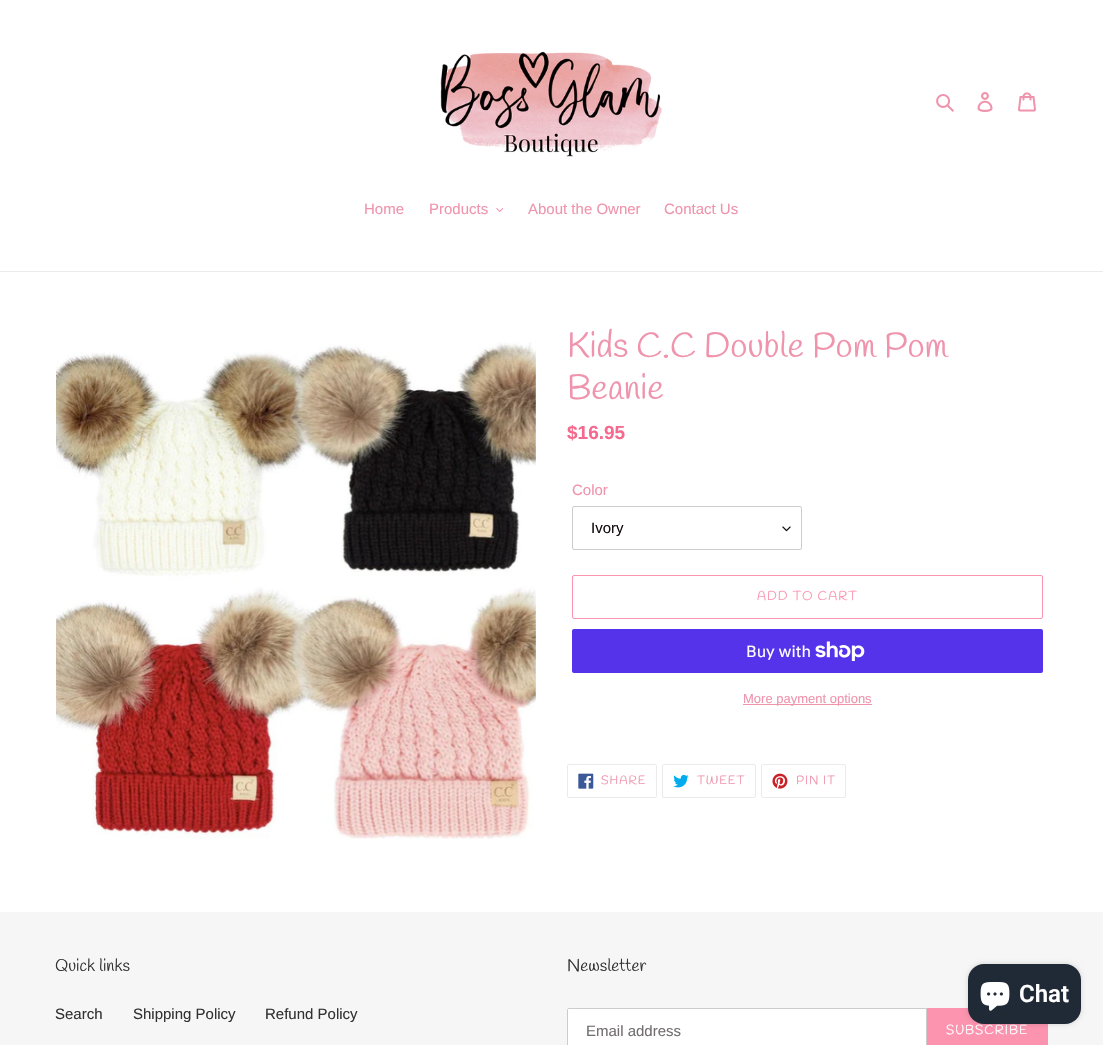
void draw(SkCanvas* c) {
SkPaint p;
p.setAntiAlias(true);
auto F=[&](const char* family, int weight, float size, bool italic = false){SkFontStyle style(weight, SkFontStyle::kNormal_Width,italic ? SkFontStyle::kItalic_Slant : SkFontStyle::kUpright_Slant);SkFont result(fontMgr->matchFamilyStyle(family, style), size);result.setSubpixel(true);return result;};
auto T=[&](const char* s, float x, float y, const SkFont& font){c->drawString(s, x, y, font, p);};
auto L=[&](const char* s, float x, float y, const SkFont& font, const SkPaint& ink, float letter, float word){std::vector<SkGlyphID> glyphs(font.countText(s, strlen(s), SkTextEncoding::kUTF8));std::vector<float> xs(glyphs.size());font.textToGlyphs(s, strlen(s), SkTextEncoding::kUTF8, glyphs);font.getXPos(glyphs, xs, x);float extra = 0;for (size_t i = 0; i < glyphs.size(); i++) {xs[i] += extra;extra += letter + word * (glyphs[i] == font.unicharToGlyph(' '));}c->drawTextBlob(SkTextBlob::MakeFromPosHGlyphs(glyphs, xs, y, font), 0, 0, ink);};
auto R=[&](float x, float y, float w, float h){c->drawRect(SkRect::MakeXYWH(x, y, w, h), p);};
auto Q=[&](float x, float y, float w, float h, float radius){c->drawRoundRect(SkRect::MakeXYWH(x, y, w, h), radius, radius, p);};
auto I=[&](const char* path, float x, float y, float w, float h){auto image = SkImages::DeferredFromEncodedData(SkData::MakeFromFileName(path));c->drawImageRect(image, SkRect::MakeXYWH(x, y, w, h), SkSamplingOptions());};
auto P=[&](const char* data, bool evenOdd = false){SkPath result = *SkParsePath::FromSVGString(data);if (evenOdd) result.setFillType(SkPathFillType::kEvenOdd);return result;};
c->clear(0xffffffff);
I("1.png",440,51,222,106);
I("2.png",936,94,18,18);
I("3.png",977,92,16,20);
I("4.png",1018,92,18,20);
p.setColor(0xffebebeb);
R(0,271,1103,1);
auto f1 = F("Liberation Sans",400,15);
p.setColor(0xffef94ac);
T("Home",364,214,f1);
T("Products",429,214,f1);
I("5.png",496,208,7,4);
T("About the Owner",528,214,f1);
T("Contact Us",664,214,f1);
I("6.png",56,342,480,497);
auto f2 = F("Handlee",400,35);
T("Kids C.C Double Pom Pom",567,357,f2);
T("Beanie",567,399,f2);
auto f3 = F("Liberation Sans",700,19);
p.setColor(0xfff4698d);
T("$16.95",567,439,f3);
p.setColor(0xffef94ac);
T("Color",572,495,f1);
I("7.png",782,526,9,6);
p.setStroke(true);
p.setStrokeWidth(1);
p.setColor(0xffcccccc);
c->drawRoundRect(SkRect::MakeXYWH(572.5,506.5,229,43),1.5,1.5,p);
p.setStroke(false);
p.setColor(0xff140e10);
T("Ivory",591,533,f1);
p.setStroke(true);
p.setColor(0xfffc94af);
c->drawRoundRect(SkRect::MakeXYWH(572.5,575.5,470,43),1.5,1.5,p);
auto f4 = F("Handlee",400,13);
p.setStroke(false);
L("ADD TO CART",757,600,f4,p,1,0);
p.setColor(0xff5433eb);
Q(572,629,471,44,2);
auto f5 = F("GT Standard",400,16);
p.setColor(0xffffffff);
T("Buy with",746,657,f5);
I("8.png",815,641,50,20);
p.setColor(0xffef94ac);
R(743,704,129,1);
auto f6 = F("Liberation Sans",400,13);
T("More payment options",743,703,f6);
p.setStroke(true);
p.setColor(0xffebebeb);
c->drawRoundRect(SkRect::MakeXYWH(567.5,764.5,89,33),1.5,1.5,p);
I("9.png",578,773,16,16);
auto f7 = F("Handlee",400,12);
p.setStroke(false);
p.setColor(0xffef94ac);
L("SHARE",601,784,f7,p,1,0);
p.setStroke(true);
p.setColor(0xffebebeb);
c->drawRoundRect(SkRect::MakeXYWH(662.5,764.5,93,33),1.5,1.5,p);
I("10.png",673,774,16,14);
p.setStroke(false);
p.setColor(0xffef94ac);
L("TWEET",697,784,f7,p,1,0);
p.setStroke(true);
p.setColor(0xffebebeb);
c->drawRoundRect(SkRect::MakeXYWH(761.5,764.5,84,33),1.5,1.5,p);
I("11.png",772,773,16,16);
p.setStroke(false);
p.setColor(0xffef94ac);
L("PIN IT",796,784,f7,p,1,0);
p.setColor(0xfff6f6f6);
R(0,912,1103,133);
auto f8 = F("Handlee",400,17);
p.setColor(0xff333232);
T("Quick links",55,971,f8);
T("Search",55,1019,f1);
T("Shipping Policy",133,1019,f1);
T("Refund Policy",265,1019,f1);
T("Newsletter",567,971,f8);
p.setColor(0xffffffff);
c->drawPath(P("M569 1008.5h357.5v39h-357.5c-1 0-1.5-.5-1.5-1.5v-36c0-1 .5-1.5 1.5-1.5z"),p);
p.setStroke(true);
p.setColor(0xffcccccc);
c->drawPath(P("M569 1008.5h357.5v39h-357.5c-1 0-1.5-.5-1.5-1.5v-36c0-1 .5-1.5 1.5-1.5z"),p);
p.setStroke(false);
p.setColor(0xff726e70);
T("Email address",586,1036,f1);
p.setColor(0xfffc94af);
R(927,1008,121,37);
p.setColor(0xffffffff);
L("SUBSCRIBE",946,1034,f4,p,1,0);
p.setColor(0x26000000);
p.setMaskFilter(SkMaskFilter::MakeBlur(kNormal_SkBlurStyle, 2.5));
c->drawRoundRect(SkRect::MakeXYWH(968,964,113,60),16,16,p);
p.setMaskFilter(nullptr);
p.setColor(0xff202a36);
Q(968,964,113,60,16);
I("12.png",980,982,30,29);
auto f9 = F("Roboto",600,24);
p.setColor(0xffffffff);
T("Chat",1019,1002,f9);
}
